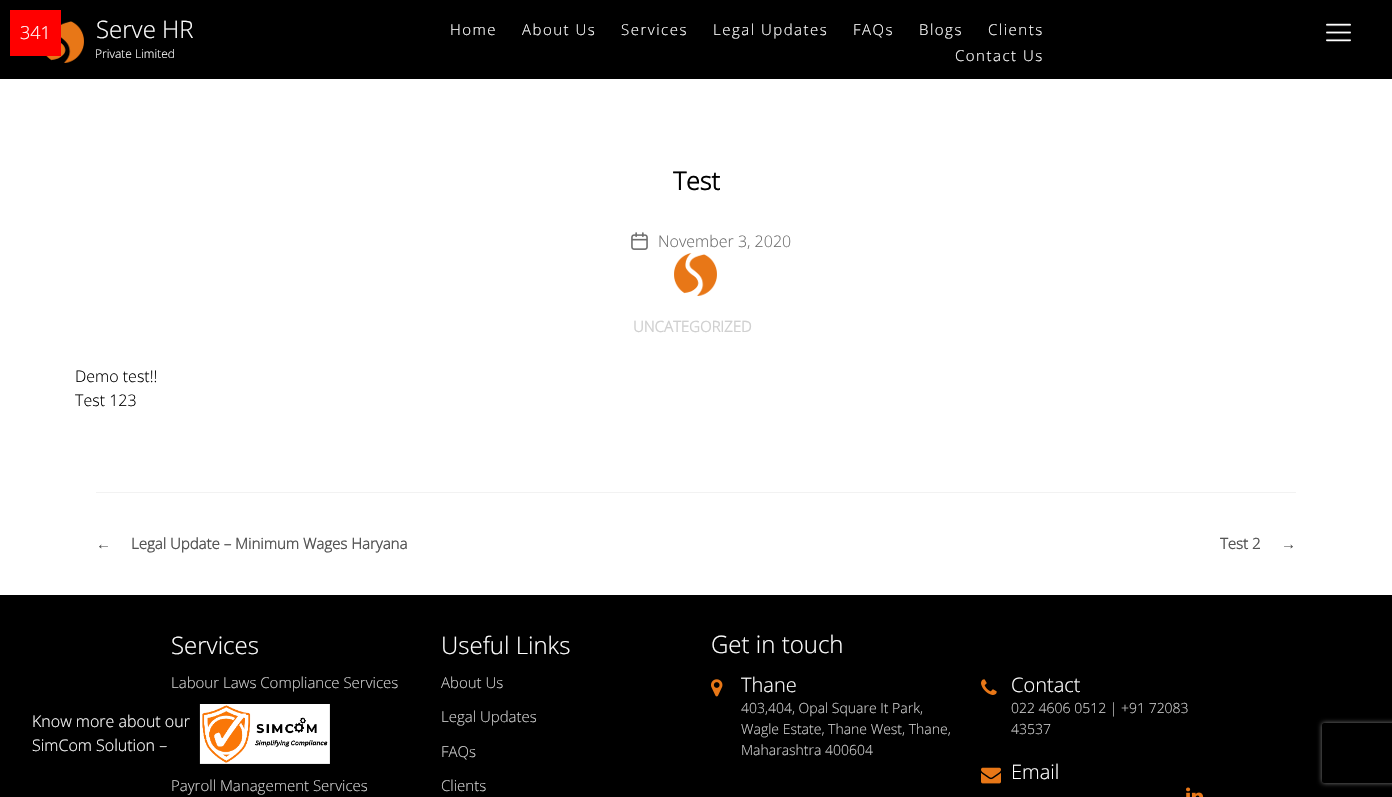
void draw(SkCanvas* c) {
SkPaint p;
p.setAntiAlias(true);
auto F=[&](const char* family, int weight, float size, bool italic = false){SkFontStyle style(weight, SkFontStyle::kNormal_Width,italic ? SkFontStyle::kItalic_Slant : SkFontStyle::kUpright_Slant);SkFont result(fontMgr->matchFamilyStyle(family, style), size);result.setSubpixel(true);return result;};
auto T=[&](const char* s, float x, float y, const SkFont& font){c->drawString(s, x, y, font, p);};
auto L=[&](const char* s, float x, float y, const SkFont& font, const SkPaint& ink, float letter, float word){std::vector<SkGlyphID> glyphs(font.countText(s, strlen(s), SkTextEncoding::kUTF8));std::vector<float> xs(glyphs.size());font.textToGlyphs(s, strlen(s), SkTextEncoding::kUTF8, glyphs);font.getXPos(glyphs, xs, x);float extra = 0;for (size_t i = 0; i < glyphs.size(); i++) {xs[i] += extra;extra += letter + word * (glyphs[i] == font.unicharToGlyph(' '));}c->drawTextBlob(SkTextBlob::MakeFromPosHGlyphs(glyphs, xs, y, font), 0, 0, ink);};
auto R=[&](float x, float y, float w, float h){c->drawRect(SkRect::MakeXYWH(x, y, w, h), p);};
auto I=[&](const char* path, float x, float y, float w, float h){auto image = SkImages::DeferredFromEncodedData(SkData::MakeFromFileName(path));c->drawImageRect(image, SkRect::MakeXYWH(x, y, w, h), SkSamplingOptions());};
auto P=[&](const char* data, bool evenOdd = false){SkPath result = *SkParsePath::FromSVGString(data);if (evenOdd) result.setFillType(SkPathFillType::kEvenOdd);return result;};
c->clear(0xffffffff);
p.setColor(0xff000000);
R(0,0,1392,79);
I("1.png",46,21,38,42);
p.setColor(0xffff0000);
R(10,10,51,46);
auto f1 = F("Open Sans",300,18);
p.setColor(0xffffffff);
T("341",20,39,f1);
auto f2 = F("Open Sans",300,24);
T("Serve HR",96,38,f2);
auto f3 = F("Open Sans",300,12);
T("Private Limited",95,58,f3);
auto f4 = F("Open Sans",300,15);
L("Home",450,35,f4,p,1.5,0);
L("About Us",522,35,f4,p,1.5,0);
L("Services",621,35,f4,p,1.5,0);
L("Legal Updates",713,35,f4,p,1.5,0);
L("FAQs",853,35,f4,p,1.5,0);
L("Blogs",919,35,f4,p,1.5,0);
L("Clients",988,35,f4,p,1.5,0);
L("Contact Us",955,61,f4,p,1.5,0);
I("2.png",1326,23,25,19);
auto f5 = F("Open Sans",700,25);
p.setColor(0xff000000);
T("Test",673,190,f5);
I("3.png",631,232,17,18);
auto f6 = F("Open Sans",300,16);
p.setColor(0xff6d6d6d);
T("November 3, 2020",658,247,f6);
I("4.png",674,253,43,43);
auto f7 = F("Open Sans",700,15);
p.setColor(0xffd0d0d0);
T("UNCATEGORIZED",633,332,f7);
p.setColor(0xff000000);
T("Demo test!!",75,382,f6);
T("Test 123",75,406,f6);
p.setColor(0xfff2f2f2);
R(96,492,1200,1);
auto f8 = F("Liberation Sans",700,15);
p.setColor(0xff555555);
T("←",96,549,f8);
T("Legal Update – Minimum Wages Haryana",131,549,f7);
T("Test 2",1220,549,f7);
T("→",1281,549,f8);
p.setColor(0xff000000);
R(0,595,1392,202);
p.setColor(0xffffffff);
T("Services",171,654,f2);
T("Know more about our",32,727,f6);
T("SimCom Solution –",32,751,f6);
I("5.png",199,704,131,60);
p.setColor(0xffd0d0d0);
T("Labour Laws Compliance Services",171,688,f4);
T("Payroll Management Services",171,791,f4);
p.setColor(0xffffffff);
T("Useful Links",441,654,f2);
p.setColor(0xffd0d0d0);
T("About Us",441,688,f4);
T("Legal Updates",441,722,f4);
T("FAQs",441,757,f4);
T("Clients",441,791,f4);
p.setColor(0xffffffff);
T("Get in touch",711,653,f2);
I("6.png",711,679,12,18);
auto f9 = F("Open Sans",300,20);
T("Thane",741,692,f9);
auto f10 = F("Open Sans",300,14);
p.setColor(0xffd0d0d0);
T("403,404, Opal Square It Park,",741,713,f10);
T("Wagle Estate, Thane West, Thane,",741,734,f10);
T("Maharashtra 400604",741,755,f10);
I("7.png",981,679,16,16);
p.setColor(0xffffffff);
T("Contact",1011,692,f9);
p.setColor(0xffd0d0d0);
T("022 4606 0512 | +91 72083",1011,713,f10);
T("43537",1011,734,f10);
I("8.png",981,767,20,17);
p.setColor(0xffffffff);
T("Email",1011,779,f9);
I("9.png",1186,787,18,10);
c->save();
c->clipPath(P("M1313 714h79v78h-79zm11 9h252c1 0 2 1 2 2v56c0 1-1 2-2 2h-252c-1 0-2-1-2-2v-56c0-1 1-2 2-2z",true),true);
p.setColor(0xff808080);
p.setMaskFilter(SkMaskFilter::MakeBlur(kNormal_SkBlurStyle, 2.5));
c->drawRoundRect(SkRect::MakeXYWH(1322,723,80,60),2,2,p);
p.setMaskFilter(nullptr);
c->restore();
}
